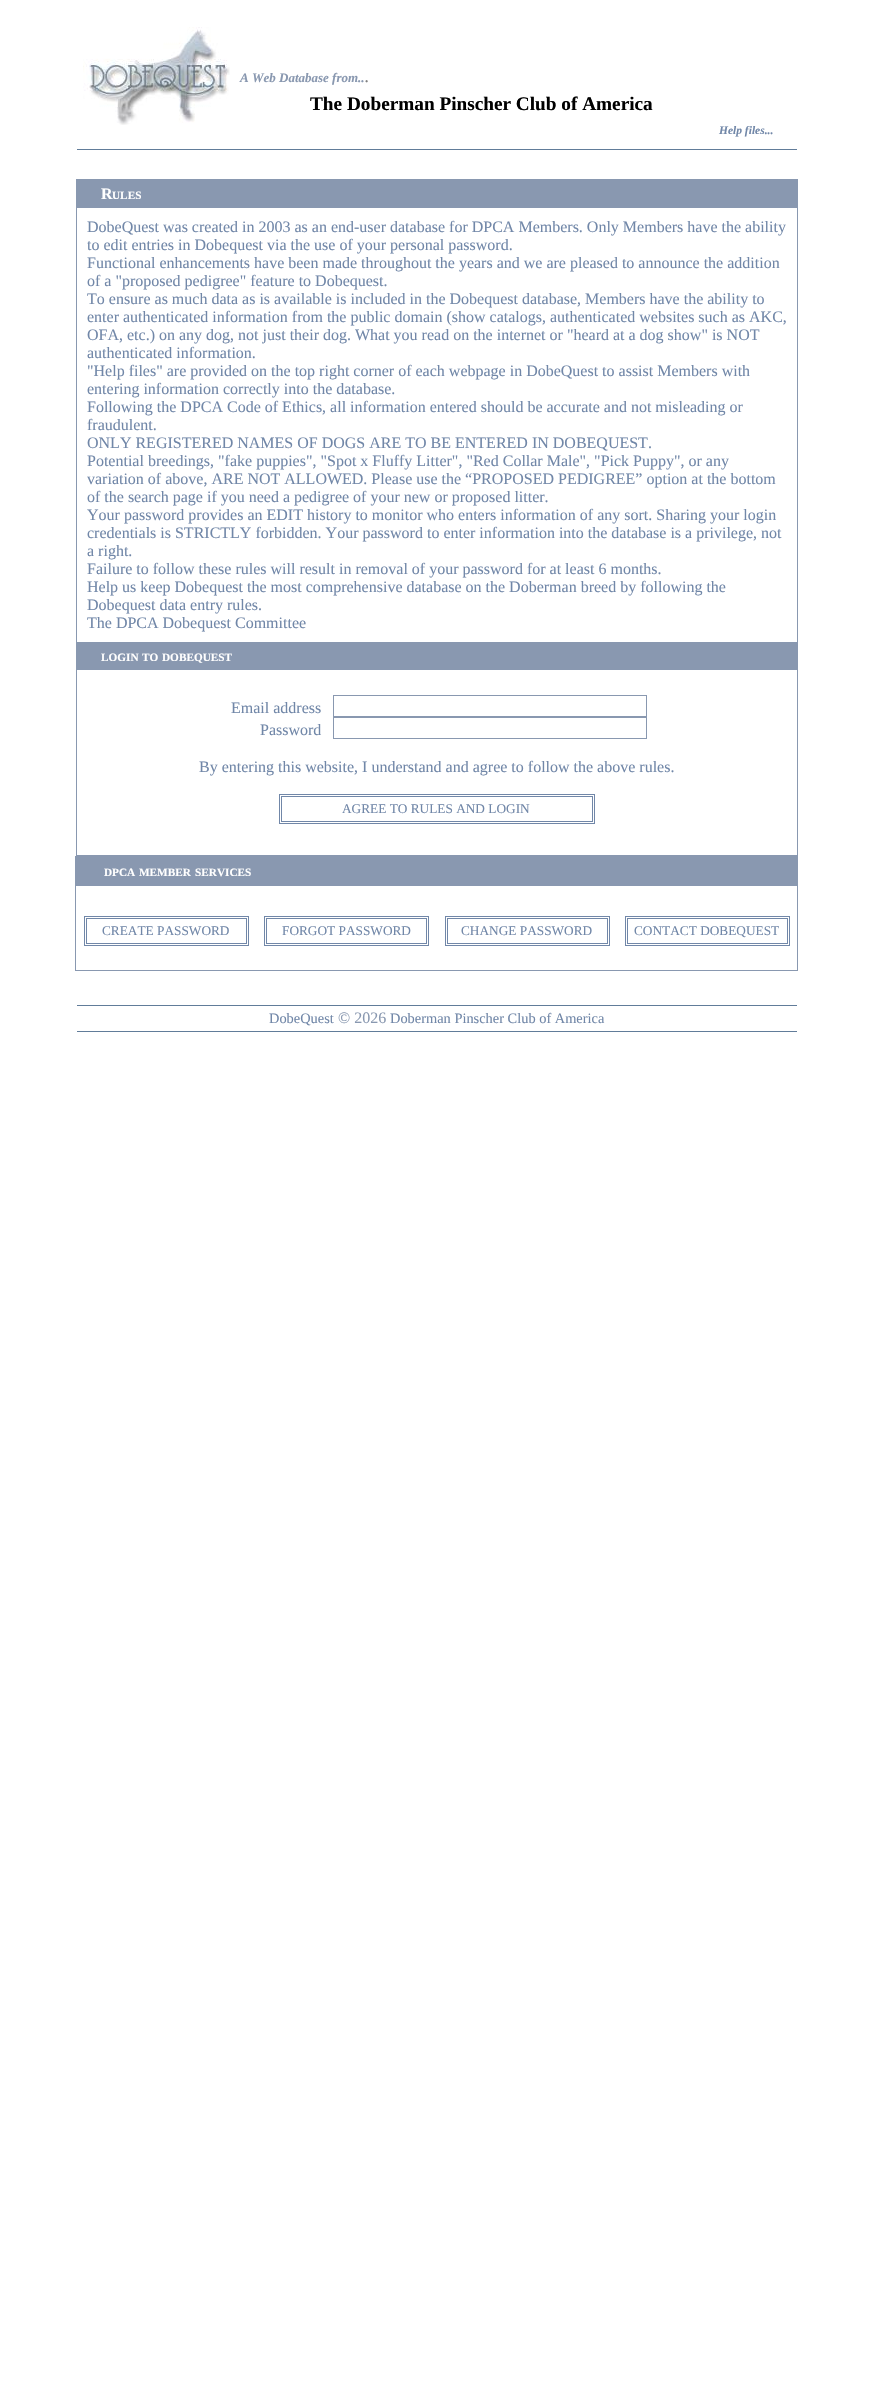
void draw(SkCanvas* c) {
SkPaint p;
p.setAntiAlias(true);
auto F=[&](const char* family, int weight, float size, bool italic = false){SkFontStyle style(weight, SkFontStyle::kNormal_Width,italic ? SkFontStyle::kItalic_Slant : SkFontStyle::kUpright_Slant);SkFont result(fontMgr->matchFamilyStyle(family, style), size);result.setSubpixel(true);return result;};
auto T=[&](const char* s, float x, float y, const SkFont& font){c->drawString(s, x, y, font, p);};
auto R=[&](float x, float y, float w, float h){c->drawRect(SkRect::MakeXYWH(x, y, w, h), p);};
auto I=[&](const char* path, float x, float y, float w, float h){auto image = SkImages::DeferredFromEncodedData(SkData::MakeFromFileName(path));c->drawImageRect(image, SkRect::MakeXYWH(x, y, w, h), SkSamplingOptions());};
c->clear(0xffffffff);
I("1.png",83,27,147,98);
auto f1 = F("Liberation Serif",700,13,true);
p.setColor(0xff8998b0);
T("A Web Database from..",240,82,f1);
auto f2 = F("Liberation Serif",700,13);
p.setColor(0xff808080);
T(".",365,82,f2);
auto f3 = F("Liberation Serif",700,19.25);
p.setColor(0xff000000);
T("The Doberman Pinscher Club of America",310,110,f3);
auto f4 = F("Liberation Serif",700,11.5,true);
p.setColor(0xff7187a8);
T("Help files...",719,134,f4);
p.setColor(0xff617c99);
R(77,149,720,1);
p.setColor(0xff8998b0);
R(76,179,722,1);
R(797,179,1,677);
R(76,855,722,1);
R(76,179,1,677);
R(77,180,720,28);
auto f5 = F("Liberation Serif",700,16);
p.setColor(0xffffffff);
T("R",101,199,f5);
auto f6 = F("Liberation Serif",700,11.25);
T("ULES",112,199,f6);
auto f7 = F("Liberation Serif",400,16);
p.setColor(0xff7187a8);
T("DobeQuest was created in 2003 as an end-user database for DPCA Members. Only Members have the ability",87,232,f7);
T("to edit entries in Dobequest via the use of your personal password.",87,250,f7);
T("Functional enhancements have been made throughout the years and we are pleased to announce the addition",87,268,f7);
T("of a \"proposed pedigree\" feature to Dobequest.",87,286,f7);
T("To ensure as much data as is available is included in the Dobequest database, Members have the ability to",87,304,f7);
T("enter authenticated information from the public domain (show catalogs, authenticated websites such as AKC,",87,322,f7);
T("OFA, etc.) on any dog, not just their dog. What you read on the internet or \"heard at a dog show\" is NOT",87,340,f7);
T("authenticated information.",87,358,f7);
T("\"Help files\" are provided on the top right corner of each webpage in DobeQuest to assist Members with",87,376,f7);
T("entering information correctly into the database.",87,394,f7);
T("Following the DPCA Code of Ethics, all information entered should be accurate and not misleading or",87,412,f7);
T("fraudulent.",87,430,f7);
T("ONLY REGISTERED NAMES OF DOGS ARE TO BE ENTERED IN DOBEQUEST.",87,448,f7);
T("Potential breedings, \"fake puppies\", \"Spot x Fluffy Litter\", \"Red Collar Male\", \"Pick Puppy\", or any",87,466,f7);
T("variation of above, ARE NOT ALLOWED. Please use the “PROPOSED PEDIGREE” option at the bottom",87,484,f7);
T("of the search page if you need a pedigree of your new or proposed litter.",87,502,f7);
T("Your password provides an EDIT history to monitor who enters information of any sort. Sharing your login",87,520,f7);
T("credentials is STRICTLY forbidden. Your password to enter information into the database is a privilege, not",87,538,f7);
T("a right.",87,556,f7);
T("Failure to follow these rules will result in removal of your password for at least 6 months.",87,574,f7);
T("Help us keep Dobequest the most comprehensive database on the Doberman breed by following the",87,592,f7);
T("Dobequest data entry rules.",87,610,f7);
T("The DPCA Dobequest Committee",87,628,f7);
p.setColor(0xff8998b0);
R(77,642,720,28);
p.setColor(0xffffffff);
T("LOGIN",101,661,f6);
T("TO",142,661,f6);
T("DOBEQUEST",162,661,f6);
p.setColor(0xff7187a8);
T("Email address",231,713,f7);
p.setStroke(true);
p.setStrokeWidth(1);
p.setColor(0xff8998b0);
c->drawRect(SkRect::MakeXYWH(333.5,695.5,313,21),p);
p.setStroke(false);
p.setColor(0xff7187a8);
T("Password",260,735,f7);
p.setStroke(true);
p.setColor(0xff8998b0);
c->drawRect(SkRect::MakeXYWH(333.5,717.5,313,21),p);
p.setStroke(false);
p.setColor(0xff7187a8);
T("By entering this website, I understand and agree to follow the above rules.",199,772,f7);
p.setStroke(true);
c->drawRect(SkRect::MakeXYWH(279.5,794.5,315,29),p);
c->drawRect(SkRect::MakeXYWH(281.5,796.5,311,25),p);
auto f8 = F("Liberation Serif",400,13.3);
p.setStroke(false);
T("AGREE TO RULES AND LOGIN",342,813,f8);
p.setColor(0xff8998b0);
R(75,856,723,1);
R(797,856,1,115);
R(75,970,723,1);
R(75,856,1,115);
R(76,857,721,29);
p.setColor(0xffffffff);
T("DPCA",104,876,f6);
T("MEMBER",139,876,f6);
T("SERVICES",195,876,f6);
p.setStroke(true);
p.setColor(0xff7187a8);
c->drawRect(SkRect::MakeXYWH(84.5,916.5,164,29),p);
c->drawRect(SkRect::MakeXYWH(86.5,918.5,160,25),p);
p.setStroke(false);
T("CREATE PASSWORD",102,935,f8);
p.setStroke(true);
c->drawRect(SkRect::MakeXYWH(264.5,916.5,164,29),p);
c->drawRect(SkRect::MakeXYWH(266.5,918.5,160,25),p);
p.setStroke(false);
T("FORGOT PASSWORD",282,935,f8);
p.setStroke(true);
c->drawRect(SkRect::MakeXYWH(445.5,916.5,164,29),p);
c->drawRect(SkRect::MakeXYWH(447.5,918.5,160,25),p);
p.setStroke(false);
T("CHANGE PASSWORD",461,935,f8);
p.setStroke(true);
c->drawRect(SkRect::MakeXYWH(625.5,916.5,164,29),p);
c->drawRect(SkRect::MakeXYWH(627.5,918.5,160,25),p);
p.setStroke(false);
T("CONTACT DOBEQUEST",634,935,f8);
p.setColor(0xff617c99);
R(77,1005,720,1);
auto f9 = F("Liberation Serif",400,14.4);
p.setColor(0xff7187a8);
T("DobeQuest",269,1023,f9);
p.setColor(0xff8998b0);
T("© 2026",338,1023,f7);
p.setColor(0xff7187a8);
T("Doberman Pinscher Club of America",390,1023,f9);
p.setColor(0xff617c99);
R(77,1031,720,1);
}
